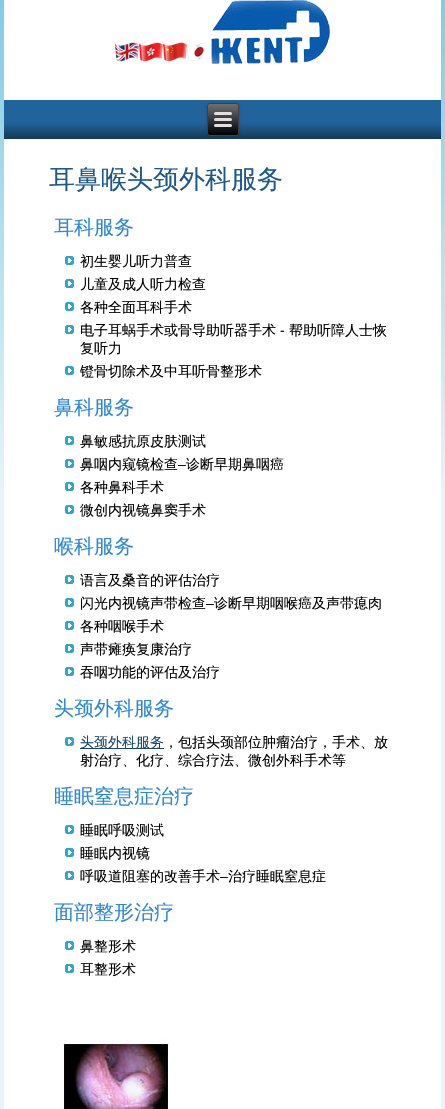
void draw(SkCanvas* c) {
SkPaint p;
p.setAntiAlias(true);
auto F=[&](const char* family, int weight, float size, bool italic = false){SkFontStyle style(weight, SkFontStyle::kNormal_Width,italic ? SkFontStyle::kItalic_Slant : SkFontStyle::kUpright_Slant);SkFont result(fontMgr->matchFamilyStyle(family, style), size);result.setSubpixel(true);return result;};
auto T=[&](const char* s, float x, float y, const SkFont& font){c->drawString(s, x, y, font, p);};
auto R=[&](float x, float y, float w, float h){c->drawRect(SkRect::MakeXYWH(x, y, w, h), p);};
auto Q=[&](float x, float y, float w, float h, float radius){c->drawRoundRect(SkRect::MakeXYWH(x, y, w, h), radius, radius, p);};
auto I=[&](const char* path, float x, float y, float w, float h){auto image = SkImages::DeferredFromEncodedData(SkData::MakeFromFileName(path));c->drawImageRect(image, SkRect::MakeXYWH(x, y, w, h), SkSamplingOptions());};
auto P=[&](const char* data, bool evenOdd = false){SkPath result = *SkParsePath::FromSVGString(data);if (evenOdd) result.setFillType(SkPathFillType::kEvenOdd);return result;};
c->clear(0xffffffff);
{
const SkColor colors[] = {0xff82cbe3,0xffe6f5f9};
const float stops[] = {0,.18};
const SkPoint ends[] = {{222,0}, {223,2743}};
p.setShader(SkGradientShader::MakeLinear(ends, colors, stops, 2, SkTileMode::kClamp));
p.setAlpha(255);
}
R(0,0,445,1109);
p.setShader(nullptr);
p.setColor(0xffffffff);
R(4,0,437,1109);
I("1.png",115,42,24,20);
I("2.png",139,42,24,20);
I("3.png",163,42,24,20);
I("4.png",187,42,24,20);
I("5.png",211,0,119,64);
{
const SkColor colors[] = {0xff21649c,0xff21649c,0xff206297,0xff133958};
const float stops[] = {0,.5,.6,1};
const SkPoint ends[] = {{223,100}, {223,139}};
p.setShader(SkGradientShader::MakeLinear(ends, colors, stops, 4, SkTileMode::kClamp));
p.setAlpha(255);
}
R(4,100,437,39);
p.setShader(nullptr);
p.setColor(0x33000000);
p.setMaskFilter(SkMaskFilter::MakeBlur(kNormal_SkBlurStyle, 1.5));
c->drawRoundRect(SkRect::MakeXYWH(207,103,32,33),3,3,p);
p.setMaskFilter(nullptr);
c->save();
c->clipPath(P("M210 103h26c1.5 0 3 1.5 3 3v27c0 1.5-1.5 3-3 3h-26c-1.5 0-3-1.5-3-3v-27c0-1.5 1.5-3 3-3z"),true);
{
const SkColor colors[] = {0xff707070,0xff000000};
const float stops[] = {0,1};
const SkPoint ends[] = {{223,104}, {223,135}};
p.setShader(SkGradientShader::MakeLinear(ends, colors, stops, 2, SkTileMode::kClamp));
p.setAlpha(255);
}
R(207,104,32,31);
c->restore();
p.setStroke(true);
p.setStrokeWidth(1);
p.setShader(nullptr);
p.setColor(0xff404040);
c->drawRoundRect(SkRect::MakeXYWH(207.5,103.5,31,32),2.5,2.5,p);
p.setStroke(false);
p.setColor(0xffe0e0e0);
Q(214,112,18,3,1.5);
Q(214,118,18,3,1.5);
Q(214,124,18,3,1.5);
auto f1 = F("WenQuanYi Zen Hei",500,26);
p.setColor(0xff1d5a8b);
T("耳鼻喉头颈外科服务",49,188,f1);
auto f2 = F("WenQuanYi Zen Hei",500,20);
p.setColor(0xff2d88d2);
T("耳科服务",54,234,f2);
I("6.png",65,256,9,9);
auto f3 = F("WenQuanYi Zen Hei",500,14);
p.setColor(0xff000000);
T("初生婴儿听力普查",80,266,f3);
I("6.png",65,279,9,9);
T("儿童及成人听力检查",80,289,f3);
I("6.png",65,302,9,9);
T("各种全面耳科手术",80,312,f3);
I("6.png",65,325,9,9);
T("电子耳蜗手术或骨导助听器手术",80,335,f3);
auto f4 = F("Liberation Sans",400,14);
T("-",280,335,f4);
T("帮助听障人士恢",289,335,f3);
T("复听力",80,353,f3);
I("6.png",65,366,9,9);
T("镫骨切除术及中耳听骨整形术",80,376,f3);
p.setColor(0xff2d88d2);
T("鼻科服务",54,414,f2);
I("6.png",65,436,9,9);
p.setColor(0xff000000);
T("鼻敏感抗原皮肤测试",80,446,f3);
I("6.png",65,459,9,9);
T("鼻咽内窥镜检查",80,469,f3);
T("–",178,469,f4);
T("诊断早期鼻咽癌",186,469,f3);
I("6.png",65,482,9,9);
T("各种鼻科手术",80,492,f3);
I("6.png",65,505,9,9);
T("微创内视镜鼻窦手术",80,515,f3);
p.setColor(0xff2d88d2);
T("喉科服务",54,553,f2);
I("6.png",65,575,9,9);
p.setColor(0xff000000);
T("语言及桑音的评估治疗",80,585,f3);
I("6.png",65,598,9,9);
T("闪光内视镜声带检查",80,608,f3);
T("–",206,608,f4);
T("诊断早期咽喉癌及声带瘜肉",214,608,f3);
I("6.png",65,621,9,9);
T("各种咽喉手术",80,631,f3);
I("6.png",65,644,9,9);
T("声带瘫痪复康治疗",80,654,f3);
I("6.png",65,667,9,9);
T("吞咽功能的评估及治疗",80,677,f3);
p.setColor(0xff2d88d2);
T("头颈外科服务",54,715,f2);
I("6.png",65,737,9,9);
p.setColor(0xff17476d);
R(80,748,84,1);
T("头颈外科服务",80,747,f3);
p.setColor(0xff000000);
T("，包括头颈部位肿瘤治疗，手术、放",164,747,f3);
T("射治疗、化疗、综合疗法、微创外科手术等",80,765,f3);
p.setColor(0xff2d88d2);
T("睡眠窒息症治疗",54,803,f2);
I("6.png",65,825,9,9);
p.setColor(0xff000000);
T("睡眠呼吸测试",80,835,f3);
I("6.png",65,848,9,9);
T("睡眠内视镜",80,858,f3);
I("6.png",65,871,9,9);
T("呼吸道阻塞的改善手术",80,881,f3);
T("–",220,881,f4);
T("治疗睡眠窒息症",228,881,f3);
p.setColor(0xff2d88d2);
T("面部整形治疗",54,919,f2);
I("6.png",65,941,9,9);
p.setColor(0xff000000);
T("鼻整形术",80,951,f3);
I("6.png",65,964,9,9);
T("耳整形术",80,974,f3);
I("7.png",58,1039,112,70);
}
